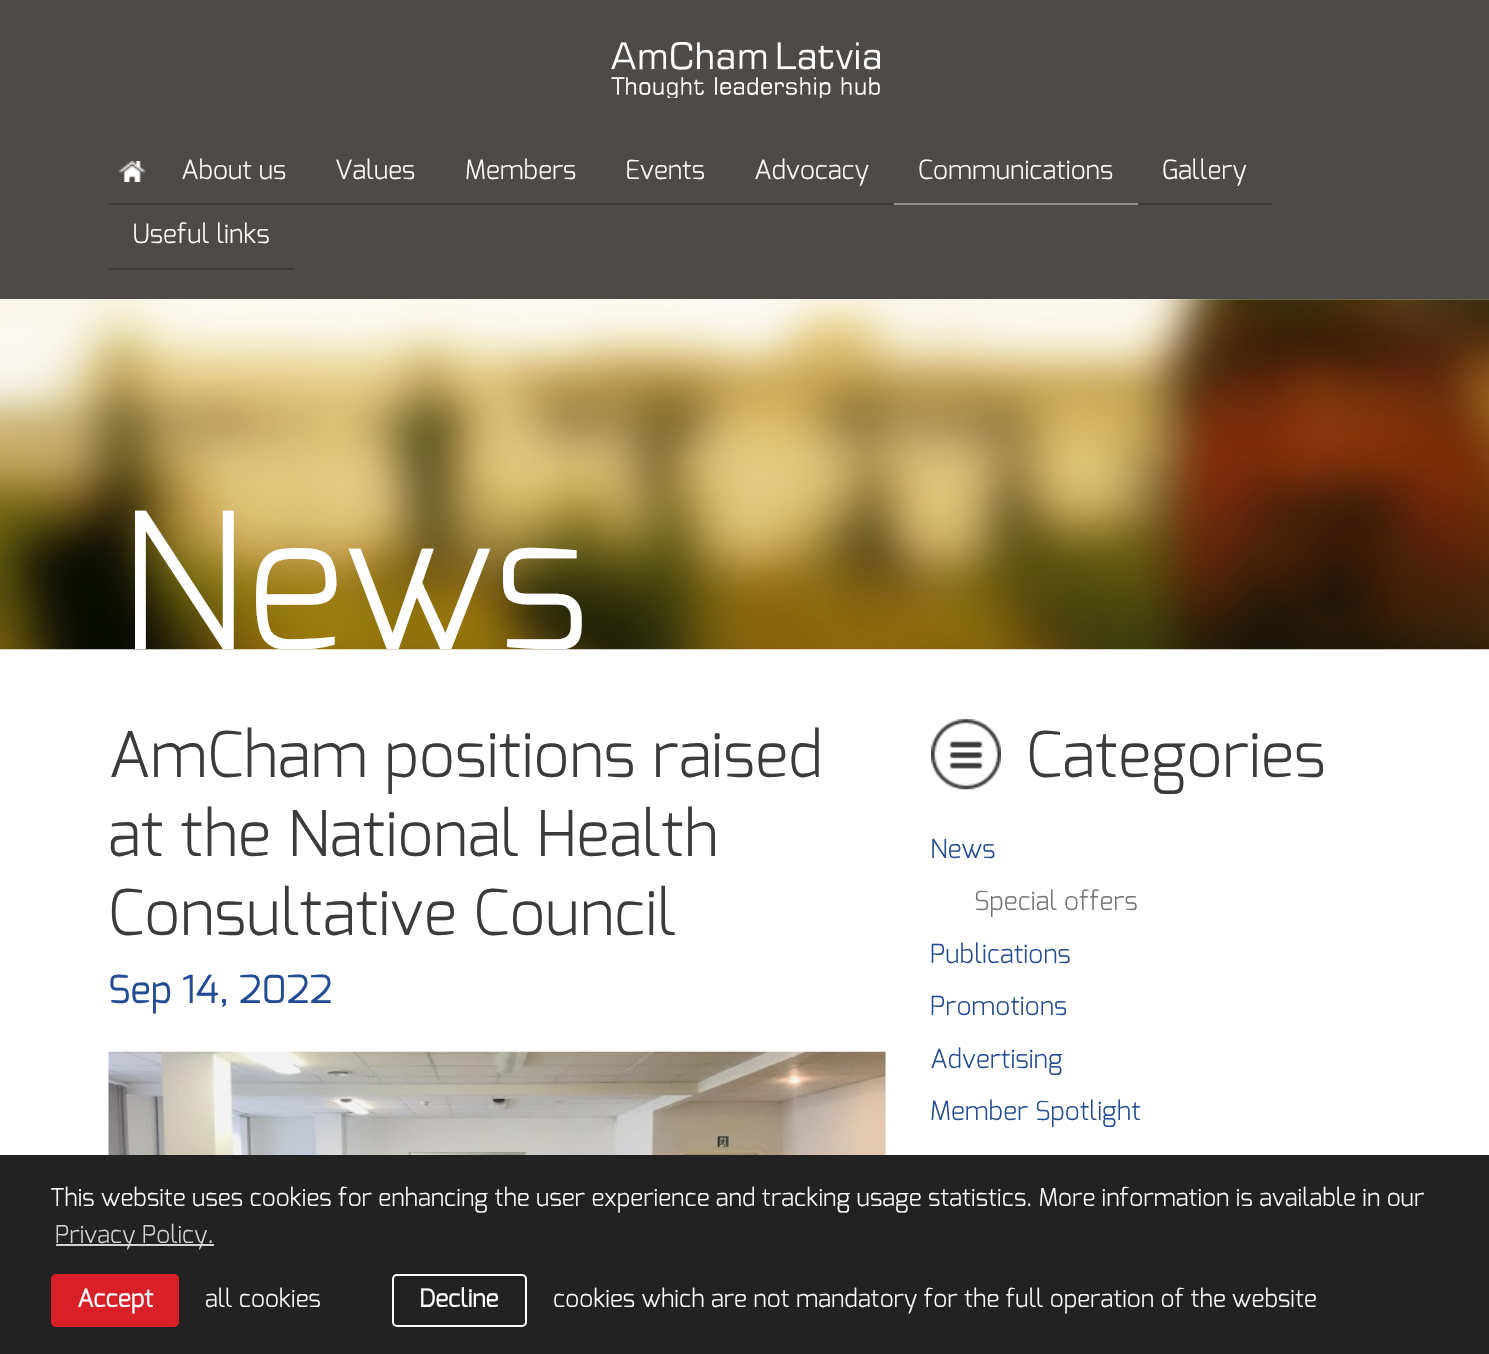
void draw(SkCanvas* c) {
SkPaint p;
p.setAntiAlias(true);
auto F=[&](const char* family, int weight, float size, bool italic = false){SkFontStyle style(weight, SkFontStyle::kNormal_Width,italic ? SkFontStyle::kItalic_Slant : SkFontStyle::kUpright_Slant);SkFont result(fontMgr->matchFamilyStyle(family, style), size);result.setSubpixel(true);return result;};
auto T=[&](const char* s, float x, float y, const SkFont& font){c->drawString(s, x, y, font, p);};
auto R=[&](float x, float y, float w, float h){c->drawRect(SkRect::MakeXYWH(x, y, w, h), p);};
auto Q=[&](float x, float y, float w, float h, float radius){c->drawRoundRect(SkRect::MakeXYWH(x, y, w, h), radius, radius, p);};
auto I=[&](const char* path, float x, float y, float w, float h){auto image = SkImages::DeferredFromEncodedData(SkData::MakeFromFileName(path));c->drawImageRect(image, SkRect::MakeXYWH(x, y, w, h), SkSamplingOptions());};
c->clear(0xffffffff);
p.setColor(0xff4d4a47);
R(0,0,1489,299);
I("1.png",611,42,269,56);
auto f1 = F("Exo",300,26.25);
p.setColor(0xffffffff);
T("About us",181,179,f1);
T("Values",335,179,f1);
T("Members",465,179,f1);
T("Events",625,179,f1);
T("Advocacy",754,179,f1);
p.setColor(0xff8e8e8e);
R(894,203,244,2);
p.setColor(0xffffffff);
T("Communications",918,179,f1);
p.setColor(0xff3c3c3c);
R(1138,203,134,2);
p.setColor(0xffffffff);
T("Gallery",1162,179,f1);
I("2.png",119,161,27,21);
p.setColor(0xff3c3c3c);
R(109,203,785,2);
R(109,268,185,2);
p.setColor(0xffffffff);
T("Useful links",132,243,f1);
I("3.png",0,299,1489,351);
c->save();
c->clipRect(SkRect::MakeXYWH(74,299,1344,350));
auto f2 = F("Exo",300,189);
T("News",118,649,f2);
c->restore();
auto f3 = F("Exo",300,63);
p.setColor(0xff3b3b3b);
T("AmCham positions raised",108,777,f3);
T("at the National Health",108,856,f3);
T("Consultative Council",108,935,f3);
auto f4 = F("Exo",400,38.5);
p.setColor(0xff224c93);
T("Sep 14, 2022",108,1003,f4);
I("4.png",108,1051,778,104);
I("5.png",931,719,70,71);
p.setColor(0xff3b3b3b);
T("Categories",1026,777,f3);
p.setColor(0xff224c93);
T("News",930,858,f1);
p.setColor(0xff757575);
T("Special offers",974,910,f1);
p.setColor(0xff224c93);
T("Publications",930,963,f1);
T("Promotions",930,1015,f1);
T("Advertising",930,1068,f1);
T("Member Spotlight",930,1120,f1);
p.setColor(0xff222222);
R(0,1155,1489,199);
auto f5 = F("Exo",300,24.5);
p.setColor(0xffffffff);
T("This website uses cookies for enhancing the user experience and tracking usage statistics. More information is available in our",50,1206,f5);
p.setColor(0xffd3d3d3);
R(56,1244,158,2);
T("Privacy Policy.",55,1243,f5);
p.setColor(0xffd92028);
Q(51,1274,128,53,5);
auto f6 = F("Exo",700,24.5);
p.setColor(0xffffffff);
T("Accept",77,1307,f6);
T("all cookies",205,1307,f5);
p.setStroke(true);
p.setStrokeWidth(2);
c->drawRoundRect(SkRect::MakeXYWH(393,1275,133,51),4,4,p);
p.setStroke(false);
T("Decline",419,1307,f6);
T("cookies which are not mandatory for the full operation of the website",553,1307,f5);
}
